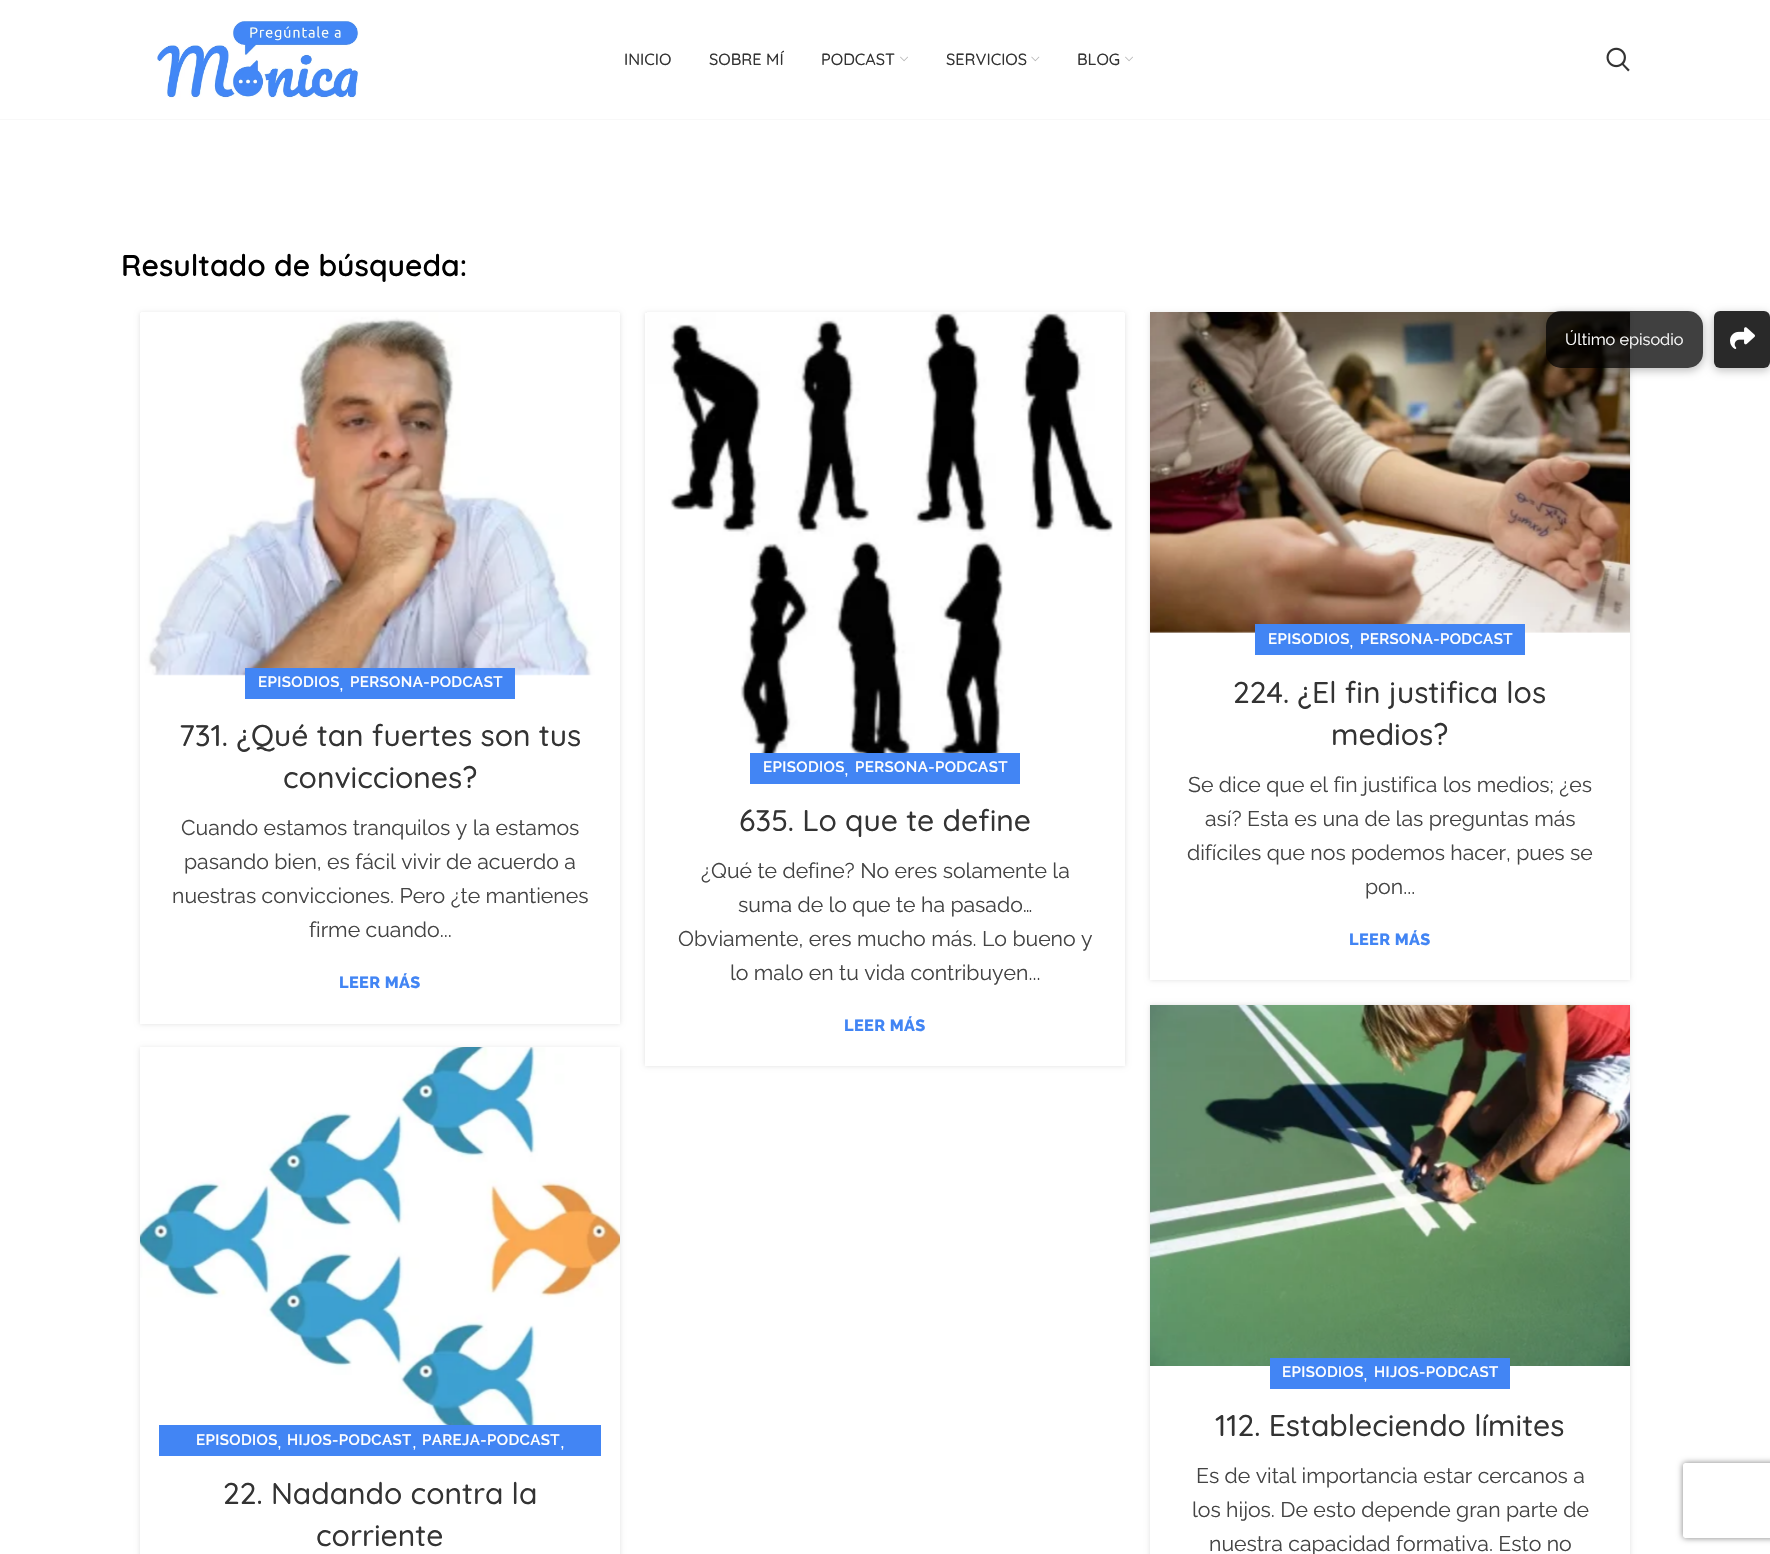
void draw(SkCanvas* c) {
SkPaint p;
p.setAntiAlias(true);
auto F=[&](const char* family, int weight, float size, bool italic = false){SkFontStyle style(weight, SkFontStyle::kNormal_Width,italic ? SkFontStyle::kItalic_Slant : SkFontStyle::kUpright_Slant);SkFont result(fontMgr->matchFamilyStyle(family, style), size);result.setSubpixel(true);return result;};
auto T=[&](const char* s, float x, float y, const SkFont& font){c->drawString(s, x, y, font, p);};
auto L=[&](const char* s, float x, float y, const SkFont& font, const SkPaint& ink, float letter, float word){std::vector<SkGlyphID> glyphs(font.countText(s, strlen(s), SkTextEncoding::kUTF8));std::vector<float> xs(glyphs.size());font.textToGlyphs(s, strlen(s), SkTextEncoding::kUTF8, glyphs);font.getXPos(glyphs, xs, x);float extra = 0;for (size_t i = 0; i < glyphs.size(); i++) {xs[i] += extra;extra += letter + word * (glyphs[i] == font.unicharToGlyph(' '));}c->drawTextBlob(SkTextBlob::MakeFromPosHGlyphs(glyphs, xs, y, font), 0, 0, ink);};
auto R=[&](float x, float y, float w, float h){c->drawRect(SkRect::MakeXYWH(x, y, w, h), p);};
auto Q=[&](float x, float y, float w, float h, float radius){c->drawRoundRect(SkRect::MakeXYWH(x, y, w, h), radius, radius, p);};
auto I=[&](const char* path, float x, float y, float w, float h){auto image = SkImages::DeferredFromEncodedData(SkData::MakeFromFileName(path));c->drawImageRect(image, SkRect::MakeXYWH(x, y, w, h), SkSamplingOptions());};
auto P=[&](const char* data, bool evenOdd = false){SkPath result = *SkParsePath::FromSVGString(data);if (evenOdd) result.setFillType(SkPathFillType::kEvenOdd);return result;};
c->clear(0xffffffff);
p.setColor(0xfff8f8f8);
R(0,119,1770,1);
I("1.png",157,21,202,78);
auto f1 = F("Quicksand",500,16.25);
p.setColor(0xff333333);
T("INICIO",624,65,f1);
T("SOBRE MÍ",709,65,f1);
T("PODCAST",821,65,f1);
I("2.png",900,56,8,6);
T("SERVICIOS",946,65,f1);
I("3.png",1031,56,9,6);
T("BLOG",1077,65,f1);
I("2.png",1125,56,8,6);
I("4.png",1606,47,24,25);
auto f2 = F("Quicksand",600,30);
p.setColor(0xff000000);
T("Resultado de búsqueda:",121,276,f2);
c->save();
c->clipPath(P("M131 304h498v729h-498zm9 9h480v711h-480z",true),true);
p.setColor(0x1f000000);
p.setMaskFilter(SkMaskFilter::MakeBlur(kNormal_SkBlurStyle, 2.5));
c->drawRect(SkRect::MakeXYWH(140,313,480,711),p);
p.setMaskFilter(nullptr);
c->restore();
I("5.png",141,312,478,364);
p.setColor(0xffffffff);
R(140,1023,480,1);
p.setColor(0xff4285f4);
R(245,668,270,31);
auto f3 = F("Raleway",600,15);
p.setColor(0xffffffff);
L("EPISODIOS",258,687,f3,p,.4,0);
L("PERSONA-PODCAST",350,687,f3,p,.4,0);
auto f4 = F("Raleway",400,21.25);
T(",",339,690,f4);
auto f5 = F("Quicksand",500,30);
p.setColor(0xff333333);
T("731. ¿Qué tan fuertes son tus",179,746,f5);
T("convicciones?",283,788,f5);
p.setColor(0xff444444);
T("Cuando estamos tranquilos y la estamos",181,835,f4);
T("pasando bien, es fácil vivir de acuerdo a",184,869,f4);
T("nuestras convicciones. Pero ¿te mantienes",172,903,f4);
T("firme cuando...",309,937,f4);
auto f6 = F("Raleway",800,16.25);
p.setColor(0xff4285f4);
L("LEER MÁS",339,988,f6,p,.4,0);
c->save();
c->clipPath(P("M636 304h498v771h-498zm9 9h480v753h-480z",true),true);
p.setColor(0x1f000000);
p.setMaskFilter(SkMaskFilter::MakeBlur(kNormal_SkBlurStyle, 2.5));
c->drawRect(SkRect::MakeXYWH(645,313,480,753),p);
p.setMaskFilter(nullptr);
c->restore();
I("6.png",647,312,477,450);
p.setColor(0xff4285f4);
R(750,753,270,31);
p.setColor(0xffffffff);
L("EPISODIOS",763,772,f3,p,.4,0);
L("PERSONA-PODCAST",855,772,f3,p,.4,0);
T(",",844,775,f4);
p.setColor(0xff333333);
T("635. Lo que te define",739,831,f5);
p.setColor(0xff444444);
T("¿Qué te define? No eres solamente la",701,878,f4);
T("suma de lo que te ha pasado…",738,912,f4);
T("Obviamente, eres mucho más. Lo bueno y",678,946,f4);
T("lo malo en tu vida contribuyen...",730,980,f4);
p.setColor(0xff4285f4);
L("LEER MÁS",844,1031,f6,p,.4,0);
c->save();
c->clipPath(P("M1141 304h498v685h-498zm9 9h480v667h-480z",true),true);
p.setColor(0x1f000000);
p.setMaskFilter(SkMaskFilter::MakeBlur(kNormal_SkBlurStyle, 2.5));
c->drawRect(SkRect::MakeXYWH(1150,313,480,667),p);
p.setMaskFilter(nullptr);
c->restore();
I("7.png",1150,312,480,321);
p.setColor(0xff4285f4);
R(1255,624,270,31);
p.setColor(0xffffffff);
L("EPISODIOS",1268,644,f3,p,.4,0);
L("PERSONA-PODCAST",1360,644,f3,p,.4,0);
T(",",1349,647,f4);
p.setColor(0xff333333);
T("224. ¿El fin justifica los",1233,703,f5);
T("medios?",1331,745,f5);
p.setColor(0xff444444);
T("Se dice que el fin justifica los medios; ¿es",1188,792,f4);
T("así? Esta es una de las preguntas más",1205,826,f4);
T("difíciles que nos podemos hacer, pues se",1187,860,f4);
T("pon...",1365,894,f4);
p.setColor(0xff4285f4);
L("LEER MÁS",1349,945,f6,p,.4,0);
c->save();
c->clipPath(P("M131 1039h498v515h-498zm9 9h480v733h-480z",true),true);
p.setColor(0x1f000000);
p.setMaskFilter(SkMaskFilter::MakeBlur(kNormal_SkBlurStyle, 2.5));
c->drawRect(SkRect::MakeXYWH(140,1048,480,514),p);
p.setMaskFilter(nullptr);
c->restore();
I("8.png",140,1047,480,387);
p.setColor(0xff4285f4);
R(159,1425,442,31);
p.setColor(0xffffffff);
L("EPISODIOS",196,1445,f3,p,.4,0);
L("HIJOS-PODCAST",287,1445,f3,p,.4,0);
L("PAREJA-PODCAST",422,1445,f3,p,.4,0);
T(",",277,1448,f4);
T(",",412,1448,f4);
T(",",560,1448,f4);
p.setColor(0xff333333);
T("22. Nadando contra la",223,1504,f5);
T("corriente",316,1546,f5);
c->save();
c->clipPath(P("M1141 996h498v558h-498zm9 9h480v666h-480z",true),true);
p.setColor(0x1f000000);
p.setMaskFilter(SkMaskFilter::MakeBlur(kNormal_SkBlurStyle, 2.5));
c->drawRect(SkRect::MakeXYWH(1150,1005,480,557),p);
p.setMaskFilter(nullptr);
c->restore();
I("9.png",1150,1005,480,361);
p.setColor(0xff4285f4);
R(1270,1358,240,31);
p.setColor(0xffffffff);
L("EPISODIOS",1282,1377,f3,p,.4,0);
L("HIJOS-PODCAST",1374,1377,f3,p,.4,0);
T(",",1363,1380,f4);
p.setColor(0xff333333);
T("112. Estableciendo límites",1215,1436,f5);
p.setColor(0xff444444);
T("Es de vital importancia estar cercanos a",1196,1483,f4);
T("los hijos. De esto depende gran parte de",1192,1517,f4);
T("nuestra capacidad formativa. Esto no",1209,1551,f4);
c->save();
c->clipPath(P("M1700 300h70v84h-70zm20 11h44c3.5 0 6 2.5 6 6v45c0 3.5-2.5 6-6 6h-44c-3.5 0-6-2.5-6-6v-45c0-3.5 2.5-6 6-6z",true),true);
p.setColor(0x3b000000);
p.setMaskFilter(SkMaskFilter::MakeBlur(kNormal_SkBlurStyle, 4));
c->drawRoundRect(SkRect::MakeXYWH(1713,313,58,58),8,8,p);
p.setMaskFilter(nullptr);
c->restore();
p.setColor(0xd6000000);
Q(1714,311,56,57,6);
c->save();
c->clipPath(P("M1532 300h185v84h-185zm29 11h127c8.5 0 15 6.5 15 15v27c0 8.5-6.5 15-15 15h-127c-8.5 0-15-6.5-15-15v-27c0-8.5 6.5-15 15-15z",true),true);
p.setColor(0x40000000);
p.setMaskFilter(SkMaskFilter::MakeBlur(kNormal_SkBlurStyle, 4));
c->drawRoundRect(SkRect::MakeXYWH(1545,313,159,58),16,16,p);
p.setMaskFilter(nullptr);
c->restore();
p.setColor(0xbf000000);
Q(1546,311,157,57,15);
auto f7 = F("Raleway",400,16.25);
p.setColor(0xffffffff);
T("Último episodio",1565,345,f7);
I("10.png",1730,327,25,22);
c->save();
c->clipPath(P("M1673 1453h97v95h-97zm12.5 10h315c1.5 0 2.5 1 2.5 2.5v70c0 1.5-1 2.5-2.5 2.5h-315c-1.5 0-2.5-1-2.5-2.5v-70c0-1.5 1-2.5 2.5-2.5z",true),true);
p.setColor(0xff808080);
p.setMaskFilter(SkMaskFilter::MakeBlur(kNormal_SkBlurStyle, 3));
c->drawRoundRect(SkRect::MakeXYWH(1683,1463,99,75),2.5,2.5,p);
p.setMaskFilter(nullptr);
c->restore();
}
